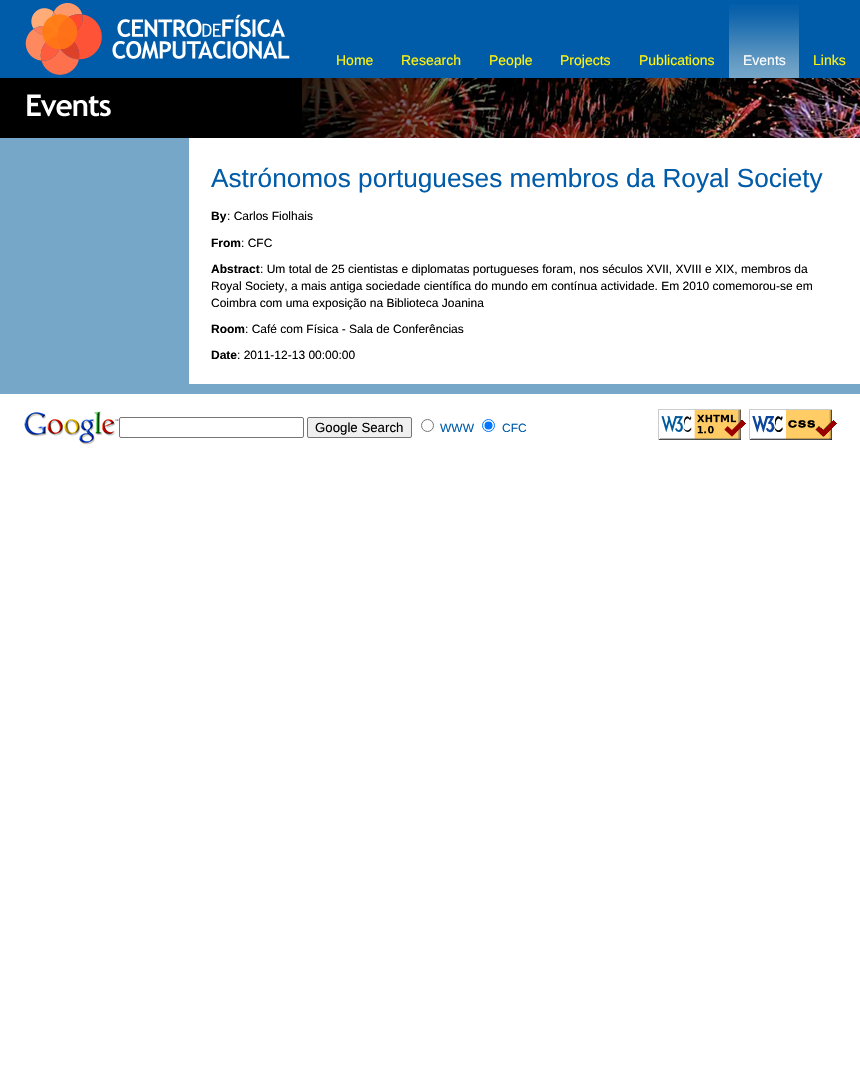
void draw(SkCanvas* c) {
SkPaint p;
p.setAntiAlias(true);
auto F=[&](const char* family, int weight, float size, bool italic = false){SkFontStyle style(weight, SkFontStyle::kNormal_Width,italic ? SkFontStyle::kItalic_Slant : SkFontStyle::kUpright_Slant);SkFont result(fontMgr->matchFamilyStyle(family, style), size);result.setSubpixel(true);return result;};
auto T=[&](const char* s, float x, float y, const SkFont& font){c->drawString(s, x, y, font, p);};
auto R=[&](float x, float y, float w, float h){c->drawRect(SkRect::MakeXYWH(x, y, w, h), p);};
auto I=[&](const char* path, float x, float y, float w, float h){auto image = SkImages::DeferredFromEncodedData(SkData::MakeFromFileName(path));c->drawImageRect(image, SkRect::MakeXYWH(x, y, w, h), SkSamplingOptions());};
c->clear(0xffffffff);
p.setColor(0xff005ba8);
R(0,0,860,78);
I("1.png",25,3,265,72);
auto f1 = F("Liberation Sans",400,14);
p.setColor(0xfffff30f);
T("Home",336,65,f1);
T("Research",401,65,f1);
T("People",489,65,f1);
T("Projects",560,65,f1);
T("Publications",639,65,f1);
I("2.png",729,4,70,74);
p.setColor(0xffffffff);
T("Events",743,65,f1);
p.setColor(0xfffff30f);
T("Links",813,65,f1);
I("3.png",0,78,860,60);
p.setColor(0xff76a6c8);
R(0,138,860,256);
p.setColor(0xffffffff);
R(189,138,671,246);
auto f2 = F("Liberation Sans",400,26.2);
p.setColor(0xff005ba8);
T("Astrónomos portugueses membros da Royal Society",211,187,f2);
auto f3 = F("Liberation Sans",700,12);
p.setColor(0xff000000);
T("By",211,220,f3);
auto f4 = F("Liberation Sans",400,12);
T(": Carlos Fiolhais",227,220,f4);
T("From",211,247,f3);
T(": CFC",241,247,f4);
T("Abstract",211,273,f3);
T(": Um total de 25 cientistas e diplomatas portugueses foram, nos séculos XVII, XVIII e XIX, membros da",260,273,f4);
T("Royal Society, a mais antiga sociedade científica do mundo em contínua actividade. Em 2010 comemorou-se em",211,290,f4);
T("Coimbra com uma exposição na Biblioteca Joanina",211,307,f4);
T("Room",211,333,f3);
T(": Café com Física - Sala de Conferências",245,333,f4);
T("Date",211,359,f3);
T(": 2011-12-13 00:00:00",237,359,f4);
I("4.png",24,411,95,34);
p.setStroke(true);
p.setStrokeWidth(1);
p.setColor(0xff767676);
c->drawRoundRect(SkRect::MakeXYWH(119.5,417.5,184,20),1.5,1.5,p);
p.setStroke(false);
p.setColor(0xffefefef);
c->drawRoundRect(SkRect::MakeXYWH(307.5,417.5,104,20),1.5,1.5,p);
p.setStroke(true);
p.setColor(0xff767676);
c->drawRoundRect(SkRect::MakeXYWH(307.5,417.5,104,20),1.5,1.5,p);
auto f5 = F("Liberation Sans",400,13.25);
p.setStroke(false);
p.setColor(0xff000000);
T("Google Search",315,432,f5);
p.setStroke(true);
p.setColor(0xff767676);
c->drawCircle(427.5,425.5,6,p);
p.setStroke(false);
p.setColor(0xff005ba8);
T("WWW",440,432,f4);
p.setStroke(true);
p.setColor(0xff0075ff);
c->drawCircle(488.5,425.5,6,p);
p.setStroke(false);
c->drawCircle(488.5,425.5,4,p);
p.setColor(0xff005ba8);
T("CFC",502,432,f4);
I("5.png",658,409,88,31);
I("6.png",749,409,88,31);
}
